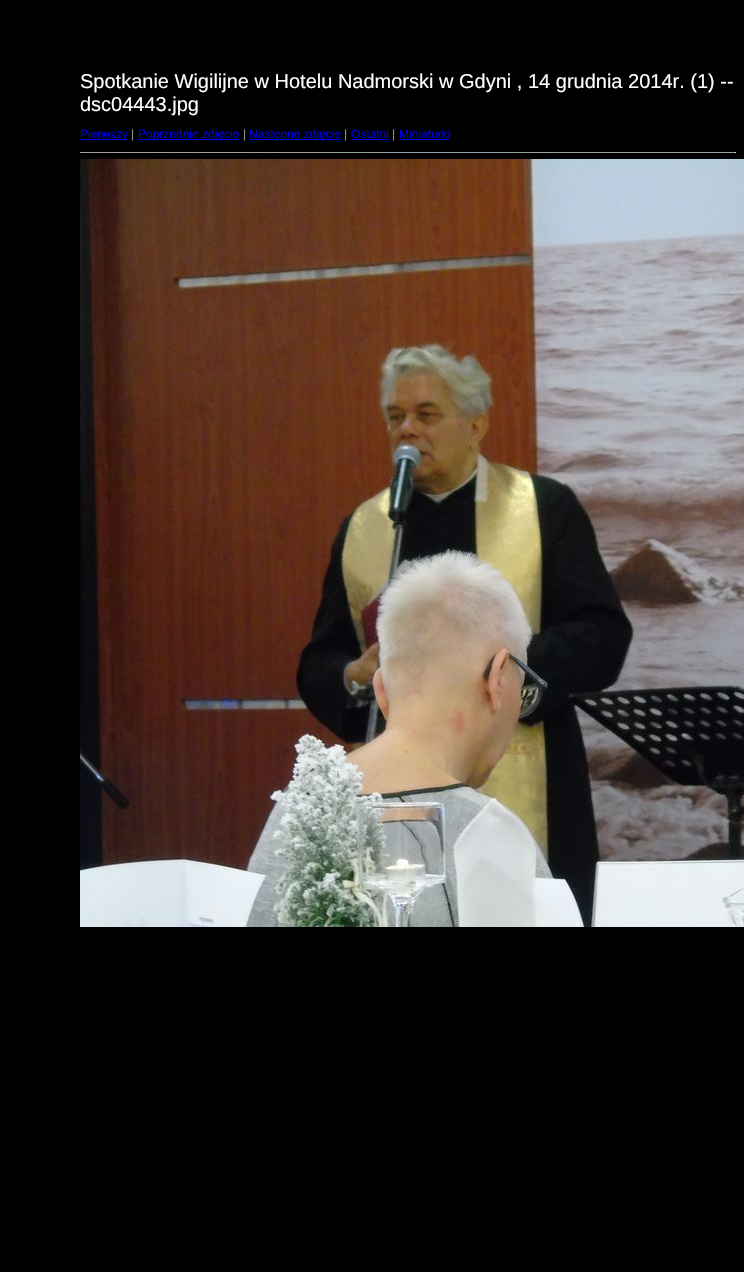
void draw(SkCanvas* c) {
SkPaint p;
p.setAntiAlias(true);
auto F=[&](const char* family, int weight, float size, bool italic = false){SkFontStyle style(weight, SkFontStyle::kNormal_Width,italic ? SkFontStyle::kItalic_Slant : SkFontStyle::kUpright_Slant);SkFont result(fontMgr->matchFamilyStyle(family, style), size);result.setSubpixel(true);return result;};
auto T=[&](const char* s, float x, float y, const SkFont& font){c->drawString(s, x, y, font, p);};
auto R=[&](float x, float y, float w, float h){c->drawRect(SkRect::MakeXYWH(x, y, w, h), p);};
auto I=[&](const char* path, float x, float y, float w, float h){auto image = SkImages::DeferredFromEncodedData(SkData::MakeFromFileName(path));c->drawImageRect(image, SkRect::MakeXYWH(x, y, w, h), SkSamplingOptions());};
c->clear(0xff000000);
auto f1 = F("Liberation Sans",400,20);
p.setColor(0xffffffff);
T("Spotkanie Wigilijne w Hotelu Nadmorski w Gdyni , 14 grudnia 2014r. (1) --",80,88,f1);
T("dsc04443.jpg",80,111,f1);
p.setColor(0xff0000ee);
R(80,139,48,1);
auto f2 = F("Liberation Sans",400,12);
T("Pierwszy",80,138,f2);
p.setColor(0xff999999);
T("|",131,138,f2);
p.setColor(0xff0000ee);
R(138,139,101,1);
T("Poprzednie zdjęcie",138,138,f2);
p.setColor(0xff999999);
T("|",243,138,f2);
p.setColor(0xff0000ee);
R(249,139,92,1);
T("Następne zdjęcie",249,138,f2);
p.setColor(0xff999999);
T("|",344,138,f2);
p.setColor(0xff0000ee);
T("Ostatni",351,138,f2);
R(351,139,38,1);
p.setColor(0xff999999);
T("|",392,138,f2);
p.setColor(0xff0000ee);
T("Miniaturki",399,138,f2);
R(399,139,51,1);
p.setColor(0xff9f9f9f);
R(80,152,656,1);
p.setColor(0xffeeeeee);
R(735,152,1,1);
I("1.png",80,159,664,768);
}
